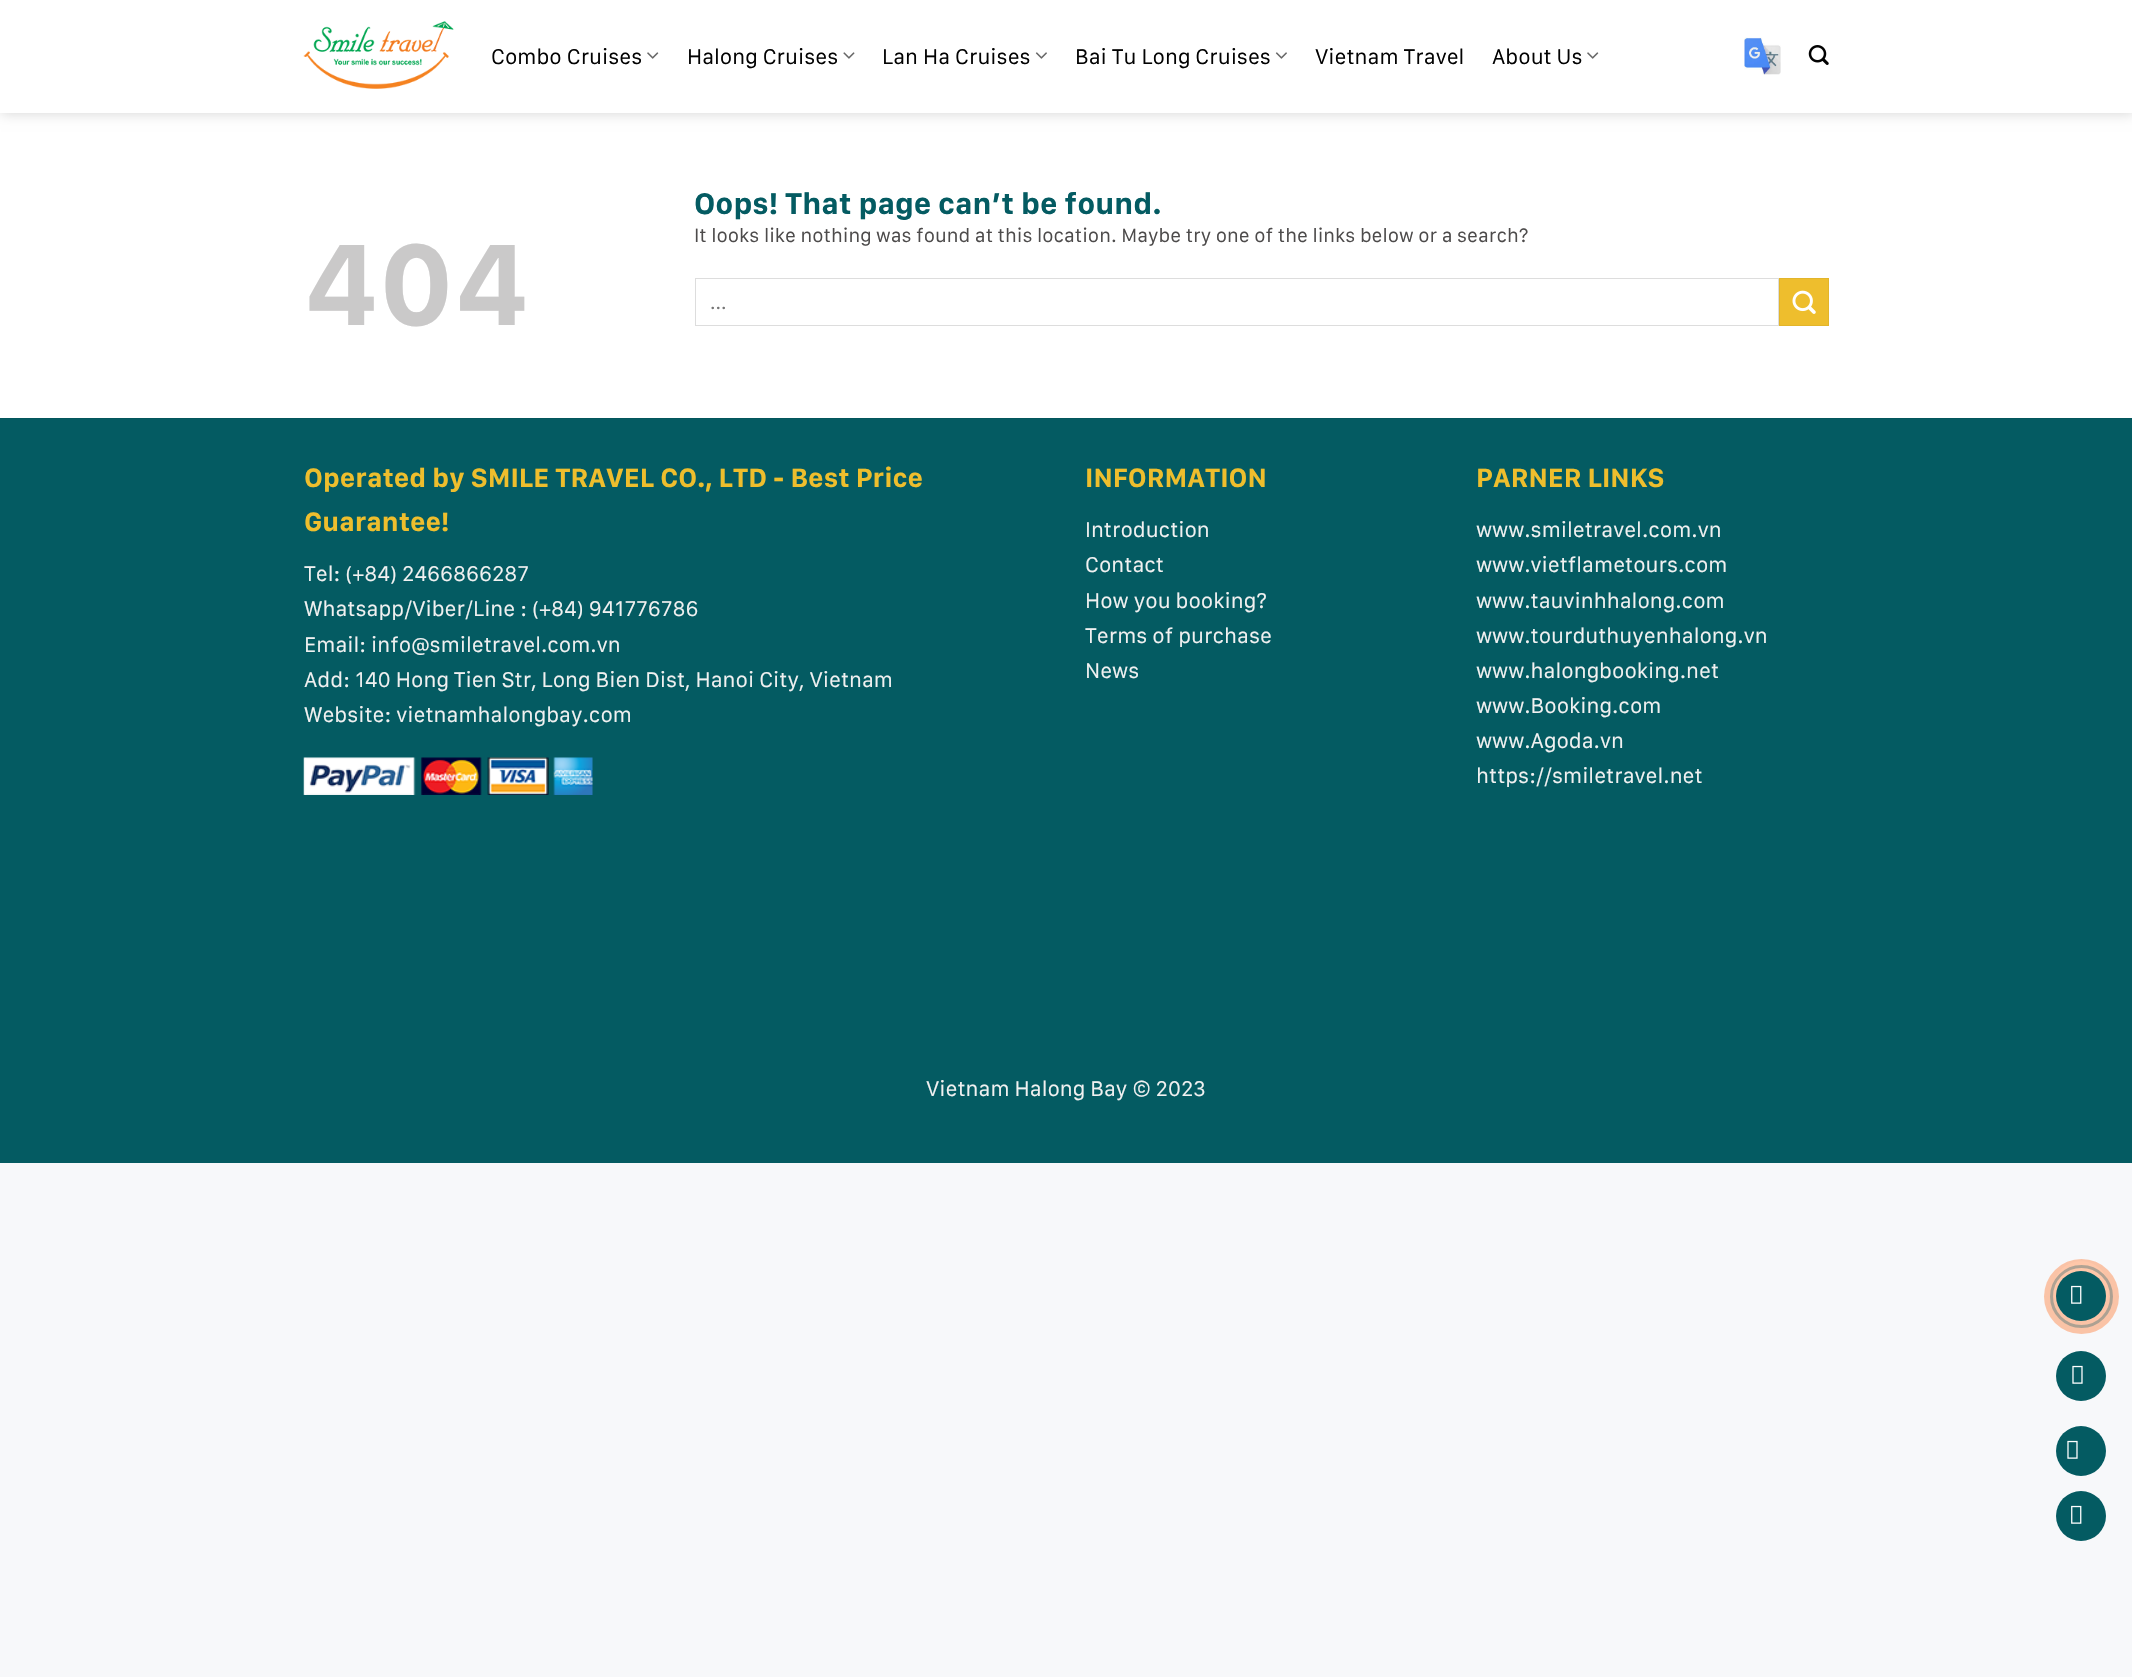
void draw(SkCanvas* c) {
SkPaint p;
p.setAntiAlias(true);
auto F=[&](const char* family, int weight, float size, bool italic = false){SkFontStyle style(weight, SkFontStyle::kNormal_Width,italic ? SkFontStyle::kItalic_Slant : SkFontStyle::kUpright_Slant);SkFont result(fontMgr->matchFamilyStyle(family, style), size);result.setSubpixel(true);return result;};
auto T=[&](const char* s, float x, float y, const SkFont& font){c->drawString(s, x, y, font, p);};
auto R=[&](float x, float y, float w, float h){c->drawRect(SkRect::MakeXYWH(x, y, w, h), p);};
auto Q=[&](float x, float y, float w, float h, float radius){c->drawRoundRect(SkRect::MakeXYWH(x, y, w, h), radius, radius, p);};
auto I=[&](const char* path, float x, float y, float w, float h){auto image = SkImages::DeferredFromEncodedData(SkData::MakeFromFileName(path));c->drawImageRect(image, SkRect::MakeXYWH(x, y, w, h), SkSamplingOptions());};
auto P=[&](const char* data, bool evenOdd = false){SkPath result = *SkParsePath::FromSVGString(data);if (evenOdd) result.setFillType(SkPathFillType::kEvenOdd);return result;};
c->clear(0xfff7f8fa);
p.setColor(0xffffffff);
R(0,0,2132,418);
c->save();
c->clipPath(P("M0 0h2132v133h-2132zm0 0h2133v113h-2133z",true),true);
p.setColor(0x26000000);
p.setMaskFilter(SkMaskFilter::MakeBlur(kNormal_SkBlurStyle, 6));
c->drawRect(SkRect::MakeXYWH(1,1,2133,113),p);
p.setMaskFilter(nullptr);
c->restore();
I("1.png",303,21,151,68);
auto f1 = F("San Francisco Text",400,22);
p.setColor(0xff020202);
T("Combo Cruises",491,64,f1);
I("2.png",647,52,12,7);
T("Halong Cruises",687,64,f1);
I("3.png",843,52,12,7);
T("Lan Ha Cruises",882,64,f1);
I("4.png",1035,52,12,7);
T("Bai Tu Long Cruises",1075,64,f1);
I("4.png",1275,52,12,7);
T("Vietnam Travel",1315,64,f1);
T("About Us",1492,64,f1);
I("2.png",1587,52,12,7);
I("5.png",1744,37,37,38);
I("6.png",1808,45,21,20);
p.setColor(0xe6ffffff);
R(0,112,2132,1);
auto f2 = F("San Francisco Text",700,120,true);
p.setColor(0xffcac9c9);
T("404",304,325,f2);
auto f3 = F("San Francisco Text",700,31,true);
p.setColor(0xff045b62);
T("Oops! That page can’t be found.",694,214,f3);
auto f4 = F("San Francisco Text",400,20);
p.setColor(0xff4d4b4b);
T("It looks like nothing was found at this location. Maybe try one of the links below or a search?",694,242,f4);
p.setStroke(true);
p.setStrokeWidth(1);
p.setColor(0xffdddddd);
c->drawRect(SkRect::MakeXYWH(695.5,278.5,1083,47),p);
auto f5 = F("San Francisco Text",400,19);
p.setStroke(false);
p.setColor(0xff757575);
T("...",710,309,f5);
p.setColor(0xffeebe2d);
c->drawRect(SkRect::MakeXYWH(1779.5,278.5,49,47),p);
p.setStroke(true);
p.setColor(0xffe2b52b);
c->drawRect(SkRect::MakeXYWH(1779.5,278.5,49,47),p);
I("7.png",1792,290,24,24);
p.setStroke(false);
p.setColor(0xff045b62);
R(0,419,2132,744);
p.setColor(0xff04565d);
R(0,418,2132,1);
auto f6 = F("San Francisco Text",700,27.5,true);
p.setColor(0xffeebe2d);
T("Operated by SMILE TRAVEL CO., LTD - Best Price",304,487,f6);
T("Guarantee!",304,531,f6);
p.setColor(0xfff1f1f1);
T("Tel: (+84) 2466866287",304,581,f1);
T("Whatsapp/Viber/Line : (+84) 941776786",304,616,f1);
T("Email: info@smiletravel.com.vn",304,652,f1);
T("Add: 140 Hong Tien Str, Long Bien Dist, Hanoi City, Vietnam",304,687,f1);
T("Website: vietnamhalongbay.com",304,722,f1);
I("8.png",303,757,290,38);
p.setColor(0xffeebe2d);
T("INFORMATION",1085,487,f6);
p.setColor(0xfff1f1f1);
T("Introduction",1085,537,f1);
T("Contact",1085,572,f1);
T("How you booking?",1085,608,f1);
T("Terms of purchase",1085,643,f1);
T("News",1085,678,f1);
p.setColor(0xffeebe2d);
T("PARNER LINKS",1476,487,f6);
p.setColor(0xfff1f1f1);
T("www.smiletravel.com.vn",1476,537,f1);
T("www.vietflametours.com",1476,572,f1);
T("www.tauvinhhalong.com",1476,608,f1);
T("www.tourduthuyenhalong.vn",1476,643,f1);
T("www.halongbooking.net",1476,678,f1);
T("www.Booking.com",1476,713,f1);
T("www.Agoda.vn",1476,748,f1);
T("https://smiletravel.net",1476,783,f1);
T("Vietnam Halong Bay © 2023",926,1096,f1);
p.setColor(0xffffffff);
Q(2053,1261,56,57,28);
p.setStroke(true);
p.setStrokeWidth(3);
p.setColor(0x800089b9);
c->drawCircle(2081.5,1296.5,30,p);
p.setStroke(false);
p.setColor(0x61fe6d1e);
c->drawCircle(2081.5,1296.5,37.5,p);
p.setColor(0xff045b62);
c->drawCircle(2081,1296,25,p);
I("9.png",2071,1285,11,19);
c->drawCircle(2081,1376,25,p);
I("10.png",2072,1365,11,19);
c->drawCircle(2081,1451,25,p);
I("10.png",2067,1440,11,19);
c->drawCircle(2081,1516,25,p);
I("9.png",2071,1505,11,19);
}
